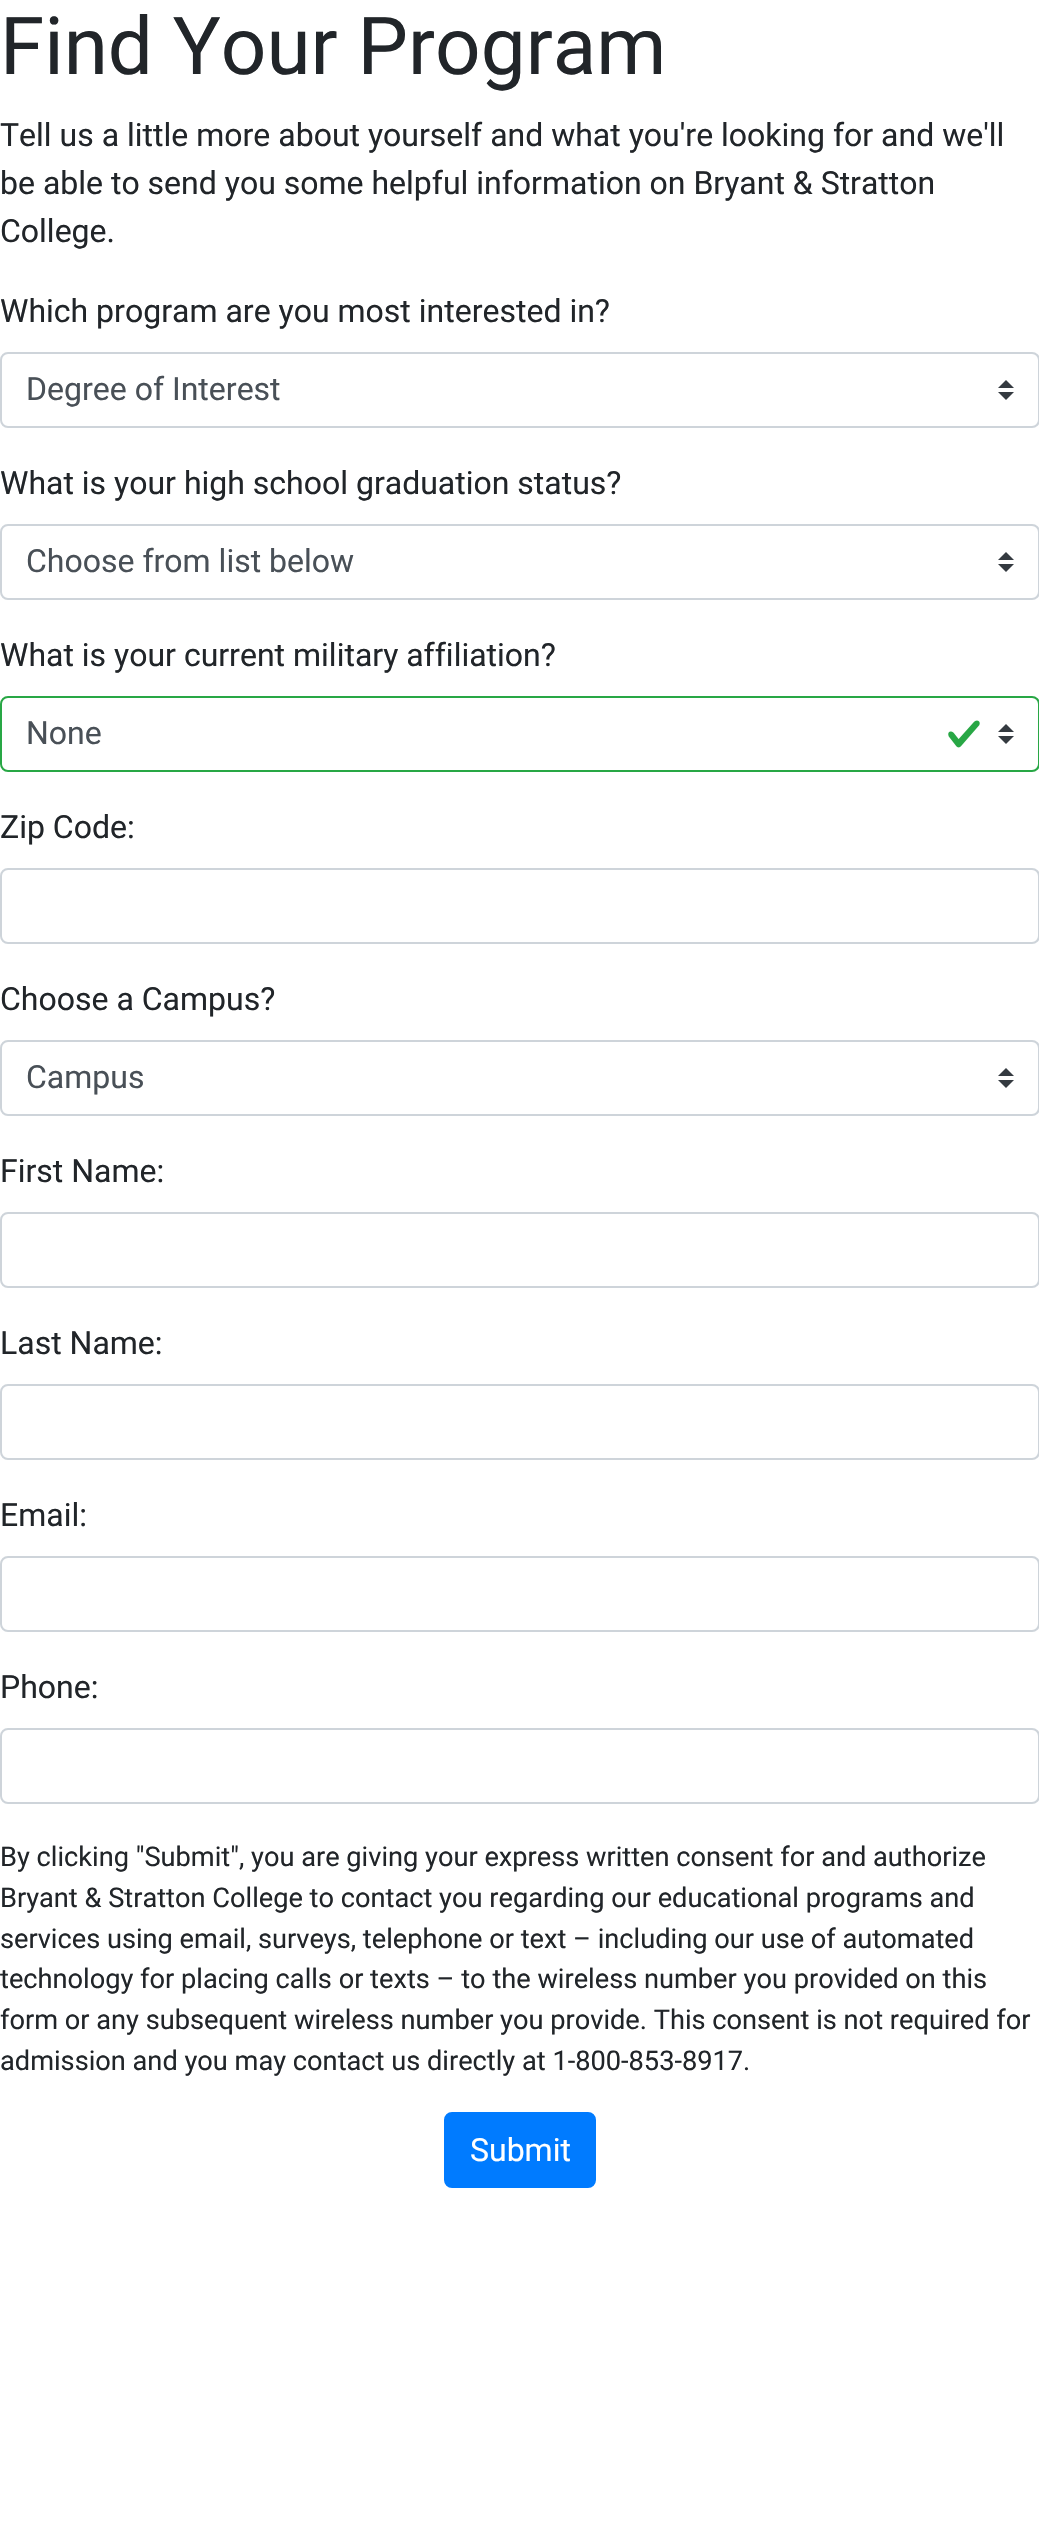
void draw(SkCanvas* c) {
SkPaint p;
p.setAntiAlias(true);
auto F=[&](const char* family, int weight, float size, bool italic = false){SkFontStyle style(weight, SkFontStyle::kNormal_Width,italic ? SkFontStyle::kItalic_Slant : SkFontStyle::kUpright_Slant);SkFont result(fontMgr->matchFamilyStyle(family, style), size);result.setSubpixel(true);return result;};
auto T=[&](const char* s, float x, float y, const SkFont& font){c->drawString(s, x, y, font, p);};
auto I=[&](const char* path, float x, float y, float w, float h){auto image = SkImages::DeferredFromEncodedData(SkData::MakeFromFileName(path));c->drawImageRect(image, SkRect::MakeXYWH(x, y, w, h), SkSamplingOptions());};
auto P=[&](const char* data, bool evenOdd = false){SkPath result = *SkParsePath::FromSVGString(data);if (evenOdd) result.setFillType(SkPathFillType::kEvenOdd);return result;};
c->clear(0xffffffff);
auto f1 = F("Roboto",400,80);
p.setColor(0xff212529);
T("Find Your Program",0,74,f1);
auto f2 = F("Roboto",400,32);
T("Tell us a little more about yourself and what you're looking for and we'll",0,146,f2);
T("be able to send you some helpful information on Bryant & Stratton",0,194,f2);
T("College.",0,242,f2);
T("Which program are you most interested in?",0,322,f2);
p.setColor(0xff343a40);
c->drawPath(P("M1006 380l-8 8h16zm0 20l-8-8h16z"),p);
p.setStroke(true);
p.setStrokeWidth(2);
p.setColor(0xffced4da);
c->drawRoundRect(SkRect::MakeXYWH(1,353,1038,74),7,7,p);
p.setStroke(false);
p.setColor(0xff495057);
T("Degree of Interest",26,400,f2);
p.setColor(0xff212529);
T("What is your high school graduation status?",0,494,f2);
p.setColor(0xff343a40);
c->drawPath(P("M1006 552l-8 8h16zm0 20l-8-8h16z"),p);
p.setStroke(true);
p.setColor(0xffced4da);
c->drawRoundRect(SkRect::MakeXYWH(1,525,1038,74),7,7,p);
p.setStroke(false);
p.setColor(0xff495057);
T("Choose from list below",26,572,f2);
p.setColor(0xff212529);
T("What is your current military affiliation?",0,666,f2);
I("1.png",948,720,32,28);
p.setColor(0xff343a40);
c->drawPath(P("M1006 724l-8 8h16zm0 20l-8-8h16z"),p);
p.setStroke(true);
p.setColor(0xff28a745);
c->drawRoundRect(SkRect::MakeXYWH(1,697,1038,74),7,7,p);
p.setStroke(false);
p.setColor(0xff495057);
T("None",26,744,f2);
p.setColor(0xff212529);
T("Zip Code:",0,838,f2);
p.setStroke(true);
p.setColor(0xffced4da);
c->drawRoundRect(SkRect::MakeXYWH(1,869,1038,74),7,7,p);
p.setStroke(false);
p.setColor(0xff212529);
T("Choose a Campus?",0,1010,f2);
p.setColor(0xff343a40);
c->drawPath(P("M1006 1068l-8 8h16zm0 20l-8-8h16z"),p);
p.setStroke(true);
p.setColor(0xffced4da);
c->drawRoundRect(SkRect::MakeXYWH(1,1041,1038,74),7,7,p);
p.setStroke(false);
p.setColor(0xff495057);
T("Campus",26,1088,f2);
p.setColor(0xff212529);
T("First Name:",0,1182,f2);
p.setStroke(true);
p.setColor(0xffced4da);
c->drawRoundRect(SkRect::MakeXYWH(1,1213,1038,74),7,7,p);
p.setStroke(false);
p.setColor(0xff212529);
T("Last Name:",0,1354,f2);
p.setStroke(true);
p.setColor(0xffced4da);
c->drawRoundRect(SkRect::MakeXYWH(1,1385,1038,74),7,7,p);
p.setStroke(false);
p.setColor(0xff212529);
T("Email:",0,1526,f2);
p.setStroke(true);
p.setColor(0xffced4da);
c->drawRoundRect(SkRect::MakeXYWH(1,1557,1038,74),7,7,p);
p.setStroke(false);
p.setColor(0xff212529);
T("Phone:",0,1698,f2);
p.setStroke(true);
p.setColor(0xffced4da);
c->drawRoundRect(SkRect::MakeXYWH(1,1729,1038,74),7,7,p);
auto f3 = F("Roboto",400,27.2);
p.setStroke(false);
p.setColor(0xff212529);
T("By clicking \"Submit\", you are giving your express written consent for and authorize",0,1866,f3);
T("Bryant & Stratton College to contact you regarding our educational programs and",0,1907,f3);
T("services using email, surveys, telephone or text – including our use of automated",0,1948,f3);
T("technology for placing calls or texts – to the wireless number you provided on this",0,1988,f3);
T("form or any subsequent wireless number you provide. This consent is not required for",0,2029,f3);
T("admission and you may contact us directly at 1-800-853-8917.",0,2070,f3);
p.setColor(0xff007bff);
c->drawRoundRect(SkRect::MakeXYWH(445,2113,150,74),7,7,p);
p.setStroke(true);
c->drawRoundRect(SkRect::MakeXYWH(445,2113,150,74),7,7,p);
p.setStroke(false);
p.setColor(0xffffffff);
T("Submit",470,2161,f2);
}
